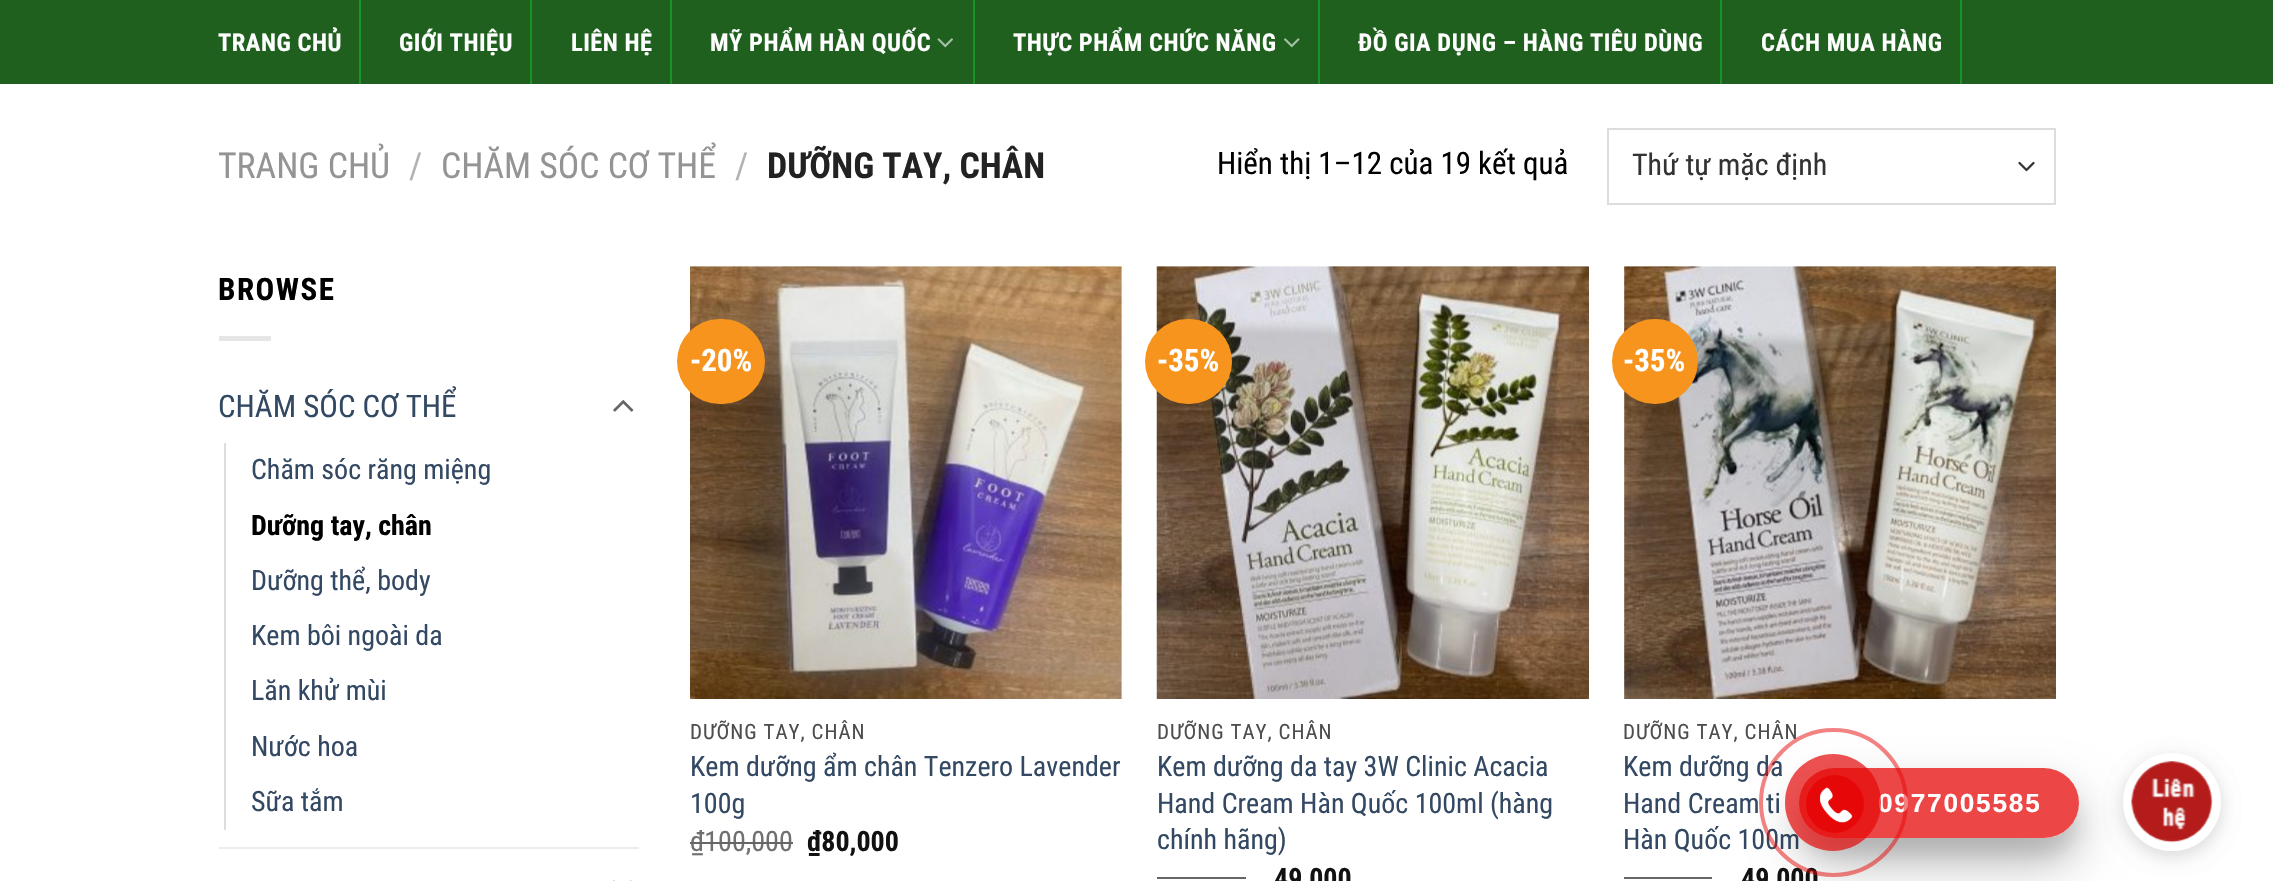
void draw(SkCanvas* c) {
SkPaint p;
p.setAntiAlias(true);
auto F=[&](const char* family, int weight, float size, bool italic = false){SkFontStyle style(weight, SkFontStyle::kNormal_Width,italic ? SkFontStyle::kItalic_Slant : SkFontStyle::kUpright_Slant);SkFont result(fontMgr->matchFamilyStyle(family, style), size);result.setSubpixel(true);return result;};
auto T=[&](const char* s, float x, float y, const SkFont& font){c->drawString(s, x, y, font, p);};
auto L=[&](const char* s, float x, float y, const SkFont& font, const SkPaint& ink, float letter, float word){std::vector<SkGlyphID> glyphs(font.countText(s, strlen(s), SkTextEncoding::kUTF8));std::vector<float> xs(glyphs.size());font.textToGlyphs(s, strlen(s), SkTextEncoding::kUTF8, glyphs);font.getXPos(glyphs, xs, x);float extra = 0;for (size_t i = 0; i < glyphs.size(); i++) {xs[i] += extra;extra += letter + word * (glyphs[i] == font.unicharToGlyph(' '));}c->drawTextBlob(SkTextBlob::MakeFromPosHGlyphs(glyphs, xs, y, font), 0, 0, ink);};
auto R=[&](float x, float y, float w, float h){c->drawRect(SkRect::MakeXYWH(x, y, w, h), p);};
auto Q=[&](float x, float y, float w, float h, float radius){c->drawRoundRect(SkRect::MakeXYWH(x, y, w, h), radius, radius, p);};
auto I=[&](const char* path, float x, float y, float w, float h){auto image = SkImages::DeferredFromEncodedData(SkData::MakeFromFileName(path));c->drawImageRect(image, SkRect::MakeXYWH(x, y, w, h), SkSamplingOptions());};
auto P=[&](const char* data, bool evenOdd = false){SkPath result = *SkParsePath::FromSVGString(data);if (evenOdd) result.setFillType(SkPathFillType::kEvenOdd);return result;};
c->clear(0xffffffff);
p.setColor(0xff1f601f);
R(0,0,2273,84);
p.setColor(0xff199427);
R(359,0,2,84);
auto f1 = F("Roboto Condensed",700,24.5);
p.setColor(0xffffffff);
L("TRANG CHỦ",218,51,f1,p,.5,0);
p.setColor(0xff199427);
R(530,0,2,84);
p.setColor(0xffffffff);
L("GIỚI THIỆU",399,51,f1,p,.5,0);
p.setColor(0xff199427);
R(670,0,2,84);
p.setColor(0xffffffff);
L("LIÊN HỆ",571,51,f1,p,.5,0);
p.setColor(0xff199427);
R(973,0,2,84);
p.setColor(0xffffffff);
L("MỸ PHẨM HÀN QUỐC",710,51,f1,p,.5,0);
I("1.png",937,38,16,10);
p.setColor(0xff199427);
R(1318,0,2,84);
p.setColor(0xffffffff);
L("THỰC PHẨM CHỨC NĂNG",1013,51,f1,p,.5,0);
I("2.png",1284,38,16,10);
p.setColor(0xff199427);
R(1720,0,2,84);
p.setColor(0xffffffff);
L("ĐỒ GIA DỤNG – HÀNG TIÊU DÙNG",1358,51,f1,p,.5,0);
p.setColor(0xff199427);
R(1960,0,2,84);
p.setColor(0xffffffff);
L("CÁCH MUA HÀNG",1761,51,f1,p,.5,0);
auto f2 = F("Roboto Condensed",400,35.75);
p.setColor(0xff949494);
T("TRANG CHỦ",218,178,f2);
p.setColor(0xffb2b2b2);
T("/",409,178,f2);
p.setColor(0xff949494);
T("CHĂM SÓC CƠ THỂ",441,178,f2);
p.setColor(0xffb2b2b2);
T("/",735,178,f2);
auto f3 = F("Roboto Condensed",700,35.75);
p.setColor(0xff222222);
T("DƯỠNG TAY, CHÂN",767,178,f3);
auto f4 = F("Roboto Condensed",400,31);
p.setColor(0xff000000);
T("Hiển thị 1–12 của 19 kết quả",1217,174,f4);
p.setStroke(true);
p.setStrokeWidth(2.3);
p.setStrokeCap(SkPaint::kRound_Cap);
p.setStrokeJoin(SkPaint::kRound_Join);
p.setColor(0xff333333);
c->drawPath(P("M2019.5 163l7 7l7-7"),p);
p.setStrokeWidth(2);
p.setStrokeCap(SkPaint::kButt_Cap);
p.setStrokeJoin(SkPaint::kMiter_Join);
p.setColor(0xffdddddd);
c->drawRect(SkRect::MakeXYWH(1608,129,447,75),p);
auto f5 = F("Roboto Condensed",400,30);
p.setStroke(false);
p.setColor(0xff333333);
T("Thứ tự mặc định",1632,175,f5);
auto f6 = F("Roboto Condensed",700,31);
p.setColor(0xff000000);
L("BROWSE",218,300,f6,p,1.5,0);
p.setColor(0xffe6e6e6);
R(219,336,52,5);
p.setColor(0xff334862);
T("CHĂM SÓC CƠ THỂ",218,417,f4);
I("3.png",613,400,21,12);
p.setColor(0xffdddddd);
R(224,443,2,387);
auto f7 = F("Roboto Condensed",400,28);
p.setColor(0xff334862);
T("Chăm sóc răng miệng",251,479,f7);
auto f8 = F("Roboto Condensed",700,28);
p.setColor(0xff000000);
T("Dưỡng tay, chân",251,535,f8);
p.setColor(0xff334862);
T("Dưỡng thể, body",251,590,f7);
T("Kem bôi ngoài da",251,645,f7);
T("Lăn khử mùi",251,700,f7);
T("Nước hoa",251,756,f7);
T("Sữa tắm",251,811,f7);
p.setColor(0xffececec);
R(219,847,420,2);
I("4.png",613,880,19,1);
I("5.png",690,266,432,433);
p.setColor(0xfff7941e);
Q(677,319,88,85,42.5);
p.setColor(0xffffffff);
T("-20%",690,371,f6);
auto f9 = F("Roboto Condensed",400,21);
p.setColor(0xff4d4d4d);
L("DƯỠNG TAY, CHÂN",690,739,f9,p,1,0);
p.setColor(0xff334862);
T("Kem dưỡng ẩm chân Tenzero Lavender",690,776,f7);
T("100g",690,813,f7);
p.setColor(0xff707070);
T("₫100,000",690,851,f7);
p.setColor(0xff666666);
R(690,842,103,2);
p.setColor(0xff111111);
T("₫80,000",807,851,f8);
I("6.png",1156,266,433,433);
p.setColor(0xfff7941e);
Q(1145,319,87,85,42.5);
p.setColor(0xffffffff);
T("-35%",1157,371,f6);
p.setColor(0xff4d4d4d);
L("DƯỠNG TAY, CHÂN",1157,739,f9,p,1,0);
p.setColor(0xff334862);
T("Kem dưỡng da tay 3W Clinic Acacia",1157,776,f7);
T("Hand Cream Hàn Quốc 100ml (hàng",1157,813,f7);
T("chính hãng)",1157,849,f7);
p.setColor(0xff666666);
R(1157,877,89,2);
p.setColor(0xff111111);
T("49,000",1274,888,f8);
I("7.png",1624,266,432,433);
p.setColor(0xfff7941e);
Q(1612,319,86,85,42.5);
p.setColor(0xffffffff);
T("-35%",1623,371,f6);
p.setColor(0xff4d4d4d);
L("DƯỠNG TAY, CHÂN",1623,739,f9,p,1,0);
p.setColor(0xff334862);
T("Kem dưỡng da",1623,776,f7);
T("Hand Cream ti",1623,813,f7);
T("Hàn Quốc 100m",1623,849,f7);
p.setColor(0xff666666);
R(1624,877,88,2);
p.setColor(0xff111111);
T("49,000",1741,888,f8);
c->save();
c->clipPath(P("M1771 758h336v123h-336zm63 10h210c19.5 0 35 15.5 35 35c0 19.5-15.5 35-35 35h-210c-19.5 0-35-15.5-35-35c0-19.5 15.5-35 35-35z",true),true);
p.setColor(0x1a000000);
p.setMaskFilter(SkMaskFilter::MakeBlur(kNormal_SkBlurStyle, 9));
c->drawRoundRect(SkRect::MakeXYWH(1799,786,280,70),35,35,p);
p.setMaskFilter(nullptr);
c->restore();
c->save();
c->clipPath(P("M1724 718h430v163h-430zm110 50h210c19.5 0 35 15.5 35 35c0 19.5-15.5 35-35 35h-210c-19.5 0-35-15.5-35-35c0-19.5 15.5-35 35-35z",true),true);
p.setColor(0x40000000);
p.setMaskFilter(SkMaskFilter::MakeBlur(kNormal_SkBlurStyle, 24.5));
c->drawRoundRect(SkRect::MakeXYWH(1799,793,280,70),35,35,p);
p.setMaskFilter(nullptr);
c->restore();
p.setColor(0xbfe60808);
Q(1799,768,280,70,35);
auto f10 = F("Liberation Sans",700,26.25);
p.setColor(0xffffffff);
L("0977005585",1878,812,f10,p,1.75,0);
p.setStroke(true);
p.setStrokeWidth(4);
p.setColor(0x80e60808);
c->drawCircle(1833.5,802.5,72.5,p);
p.setStroke(false);
p.setColor(0xb3e60808);
Q(1785,754,96,97,48);
p.setColor(0xffe60808);
c->drawCircle(1835,804,29,p);
I("8.png",1819,787,34,36);
p.setColor(0x14000000);
p.setMaskFilter(SkMaskFilter::MakeBlur(kNormal_SkBlurStyle, 9));
c->drawRoundRect(SkRect::MakeXYWH(2123,758,98,98),49,49,p);
p.setMaskFilter(nullptr);
p.setMaskFilter(SkMaskFilter::MakeBlur(kNormal_SkBlurStyle, 9));
c->drawRoundRect(SkRect::MakeXYWH(2123,758,98,98),49,49,p);
p.setMaskFilter(nullptr);
p.setColor(0xffffffff);
c->drawCircle(2172,802,44.5,p);
p.setStroke(true);
p.setStrokeWidth(9);
c->drawCircle(2172,802,44.5,p);
I("9.png",2131,761,82,82);
}
